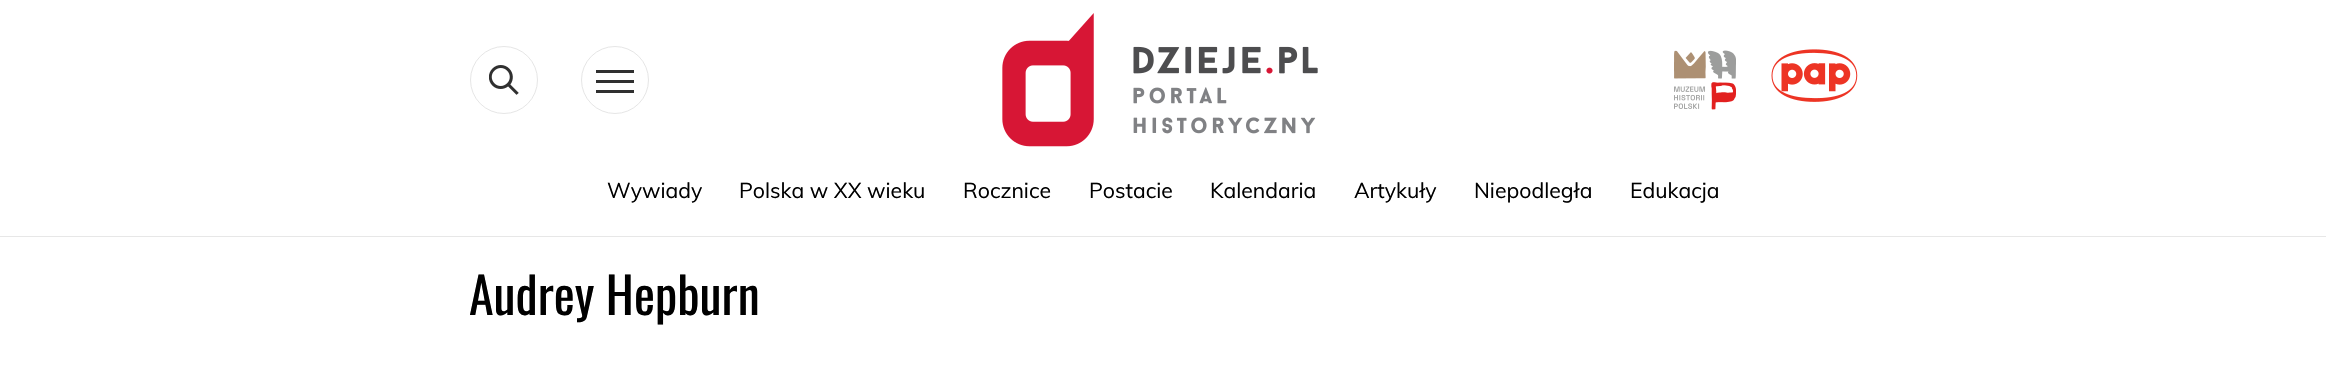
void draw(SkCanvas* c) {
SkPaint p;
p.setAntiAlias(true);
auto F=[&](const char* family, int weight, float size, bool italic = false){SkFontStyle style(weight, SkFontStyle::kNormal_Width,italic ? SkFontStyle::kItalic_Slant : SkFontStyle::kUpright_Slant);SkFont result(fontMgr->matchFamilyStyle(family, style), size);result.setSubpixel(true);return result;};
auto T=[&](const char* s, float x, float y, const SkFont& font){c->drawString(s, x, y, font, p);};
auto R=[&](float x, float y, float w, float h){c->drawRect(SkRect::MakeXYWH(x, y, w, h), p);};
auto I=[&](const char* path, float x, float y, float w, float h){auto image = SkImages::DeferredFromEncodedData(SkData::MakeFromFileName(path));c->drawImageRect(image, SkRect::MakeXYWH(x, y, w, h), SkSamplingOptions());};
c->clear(0xffffffff);
p.setColor(0xffe7e7e7);
R(0,236,2326,1);
p.setStroke(true);
p.setStrokeWidth(1);
p.setColor(0xffe6e6e6);
c->drawCircle(504,80,33.5,p);
I("1.png",489,65,30,30);
c->drawCircle(615,80,33.5,p);
p.setStroke(false);
p.setColor(0xff303030);
R(596,70,38,3);
R(596,80,38,3);
R(596,90,38,3);
I("2.png",1002,13,316,134);
I("3.png",1674,50,62,60);
I("4.png",1771,49,87,53);
auto f1 = F("Muli",400,21.25);
p.setColor(0xff000000);
T("Wywiady",607,198,f1);
T("Polska w XX wieku",739,198,f1);
T("Rocznice",963,198,f1);
T("Postacie",1089,198,f1);
T("Kalendaria",1210,198,f1);
T("Artykuły",1354,198,f1);
T("Niepodległa",1474,198,f1);
T("Edukacja",1630,198,f1);
auto f2 = F("Oswald",400,50);
T("Audrey Hepburn",469,315,f2);
}
